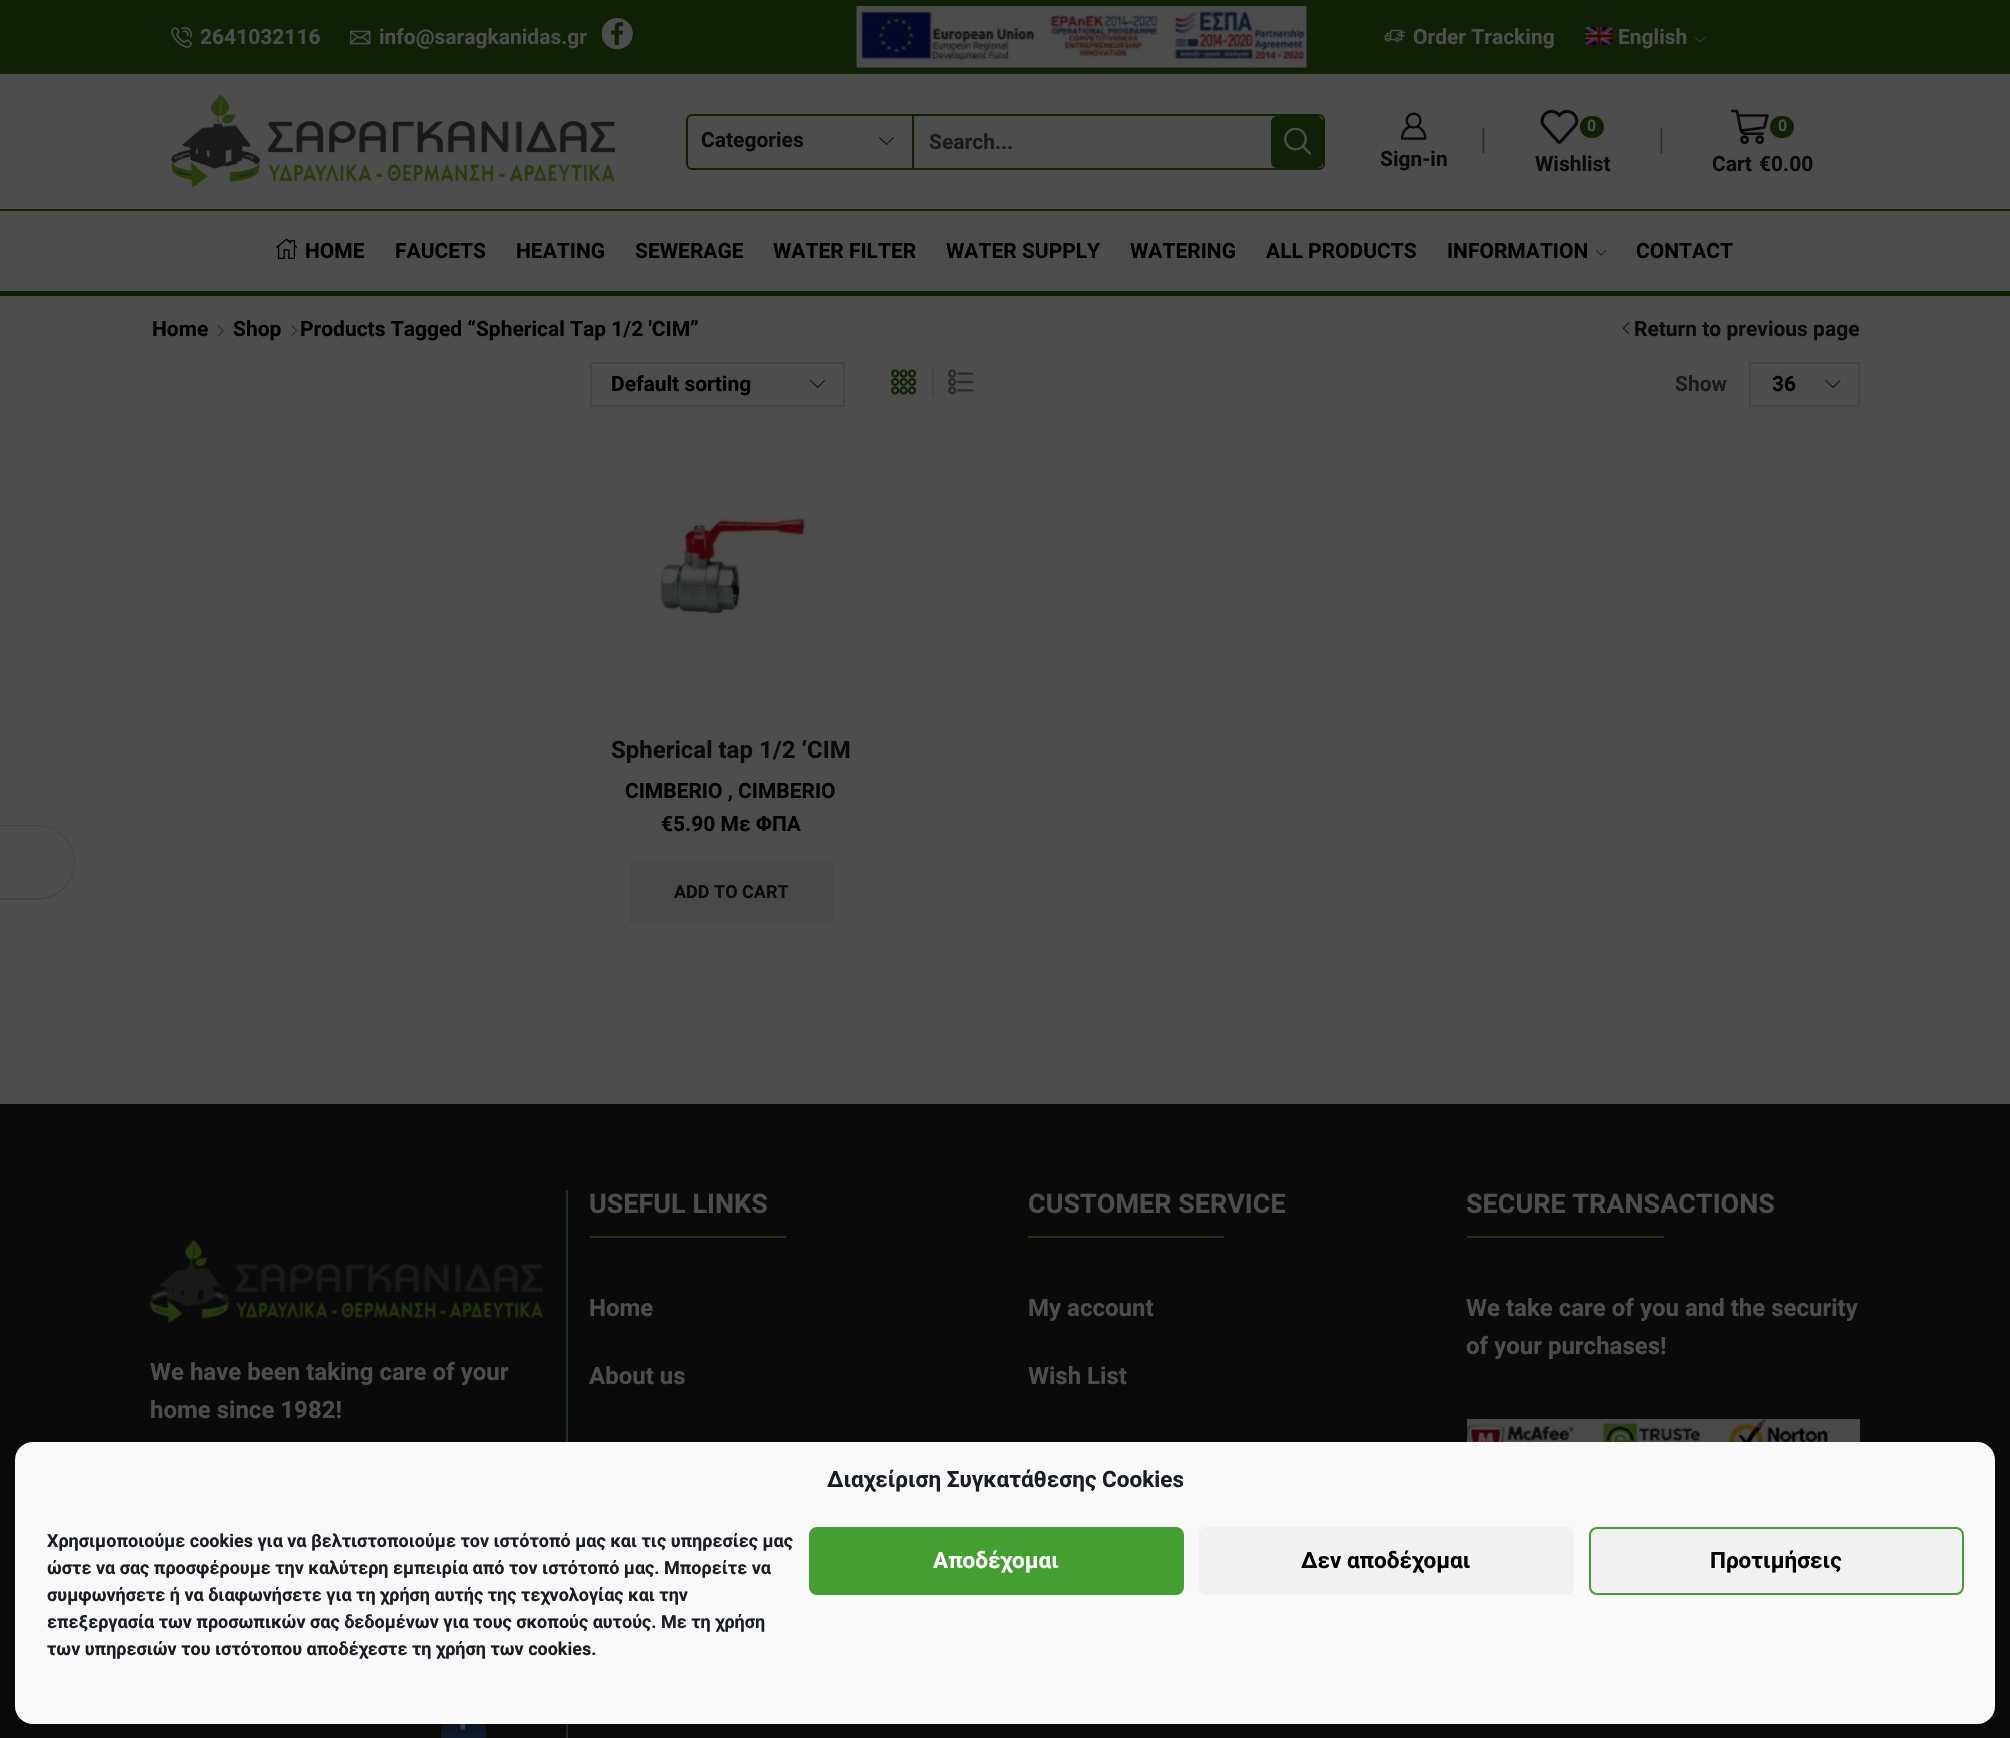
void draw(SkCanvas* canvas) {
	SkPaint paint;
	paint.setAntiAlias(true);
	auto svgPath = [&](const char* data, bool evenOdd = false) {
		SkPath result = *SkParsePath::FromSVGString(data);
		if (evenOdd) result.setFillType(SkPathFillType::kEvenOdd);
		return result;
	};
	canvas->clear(0xff4d4d4d);
	paint.setColor(0xff444444);
	canvas->drawPath(svgPath("M0 825H38C58 825 75 842 75 862C75 883 58 900 38 900H0ZM0 826H38C57 826 74 843 74 862C74 882 57 898 38 898H0Z", true), paint);
	paint.setColor(0xff102005);
	canvas->drawRect(SkRect::MakeXYWH(0, 0, 2010, 74), paint);
	canvas->drawImageRect(SkImages::DeferredFromEncodedData(SkData::MakeFromFileName("img1.png")), SkRect::MakeXYWH(171, 27, 21, 21), SkSamplingOptions());
	SkFont f1(fontMgr->matchFamilyStyle("Roboto", SkFontStyle::Bold()), 21);
	f1.setSubpixel(true);
	paint.setColor(0xff4d4d4d);
	canvas->drawString("2641032116", 200, 44, f1, paint);
	canvas->drawImageRect(SkImages::DeferredFromEncodedData(SkData::MakeFromFileName("img2.png")), SkRect::MakeXYWH(350, 30, 21, 15), SkSamplingOptions());
	canvas->drawString("info@saragkanidas.gr", 379, 44, f1, paint);
	canvas->drawImageRect(SkImages::DeferredFromEncodedData(SkData::MakeFromFileName("img3.png")), SkRect::MakeXYWH(602, 18, 31, 32), SkSamplingOptions());
	canvas->drawImageRect(SkImages::DeferredFromEncodedData(SkData::MakeFromFileName("img4.png")), SkRect::MakeXYWH(856, 6, 451, 62), SkSamplingOptions());
	canvas->drawImageRect(SkImages::DeferredFromEncodedData(SkData::MakeFromFileName("img5.png")), SkRect::MakeXYWH(1384, 29, 22, 13), SkSamplingOptions());
	canvas->drawString("Order Tracking", 1413, 44, f1, paint);
	canvas->drawImageRect(SkImages::DeferredFromEncodedData(SkData::MakeFromFileName("img6.png")), SkRect::MakeXYWH(1585, 27, 28, 18), SkSamplingOptions());
	canvas->drawString("English", 1618, 44, f1, paint);
	canvas->drawImageRect(SkImages::DeferredFromEncodedData(SkData::MakeFromFileName("img7.png")), SkRect::MakeXYWH(1695, 37, 11, 6), SkSamplingOptions());
	canvas->drawImageRect(SkImages::DeferredFromEncodedData(SkData::MakeFromFileName("img8.png")), SkRect::MakeXYWH(171, 94, 444, 94), SkSamplingOptions());
	paint.setStroke(true);
	paint.setStrokeWidth(2);
	paint.setColor(0xff102005);
	canvas->drawRoundRect(SkRect::MakeXYWH(687, 115, 637, 54), 5, 5, paint);
	canvas->drawImageRect(SkImages::DeferredFromEncodedData(SkData::MakeFromFileName("img9.png")), SkRect::MakeXYWH(879, 137, 15, 8), SkSamplingOptions());
	paint.setStroke(false);
	canvas->drawRect(SkRect::MakeXYWH(912, 116, 2, 52), paint);
	paint.setColor(0xff0a0a0a);
	canvas->drawString("Categories", 701, 147, f1, paint);
	paint.setColor(0xff1a1a1a);
	canvas->drawString("Search...", 929, 149, f1, paint);
	paint.setColor(0xff102005);
	canvas->drawRoundRect(SkRect::MakeXYWH(1271, 116, 52, 52), 6, 6, paint);
	canvas->drawImageRect(SkImages::DeferredFromEncodedData(SkData::MakeFromFileName("img10.png")), SkRect::MakeXYWH(1284, 128, 27, 27), SkSamplingOptions());
	SkFont f2(fontMgr->matchFamilyStyle("Liberation Serif", SkFontStyle::Normal()), 21);
	f2.setSubpixel(true);
	paint.setColor(0xff2c2c2c);
	canvas->drawString("│", 1476, 147, f2, paint);
	canvas->drawImageRect(SkImages::DeferredFromEncodedData(SkData::MakeFromFileName("img11.png")), SkRect::MakeXYWH(1540, 109, 39, 35), SkSamplingOptions());
	paint.setColor(0xff102005);
	canvas->drawRoundRect(SkRect::MakeXYWH(1580, 116, 24, 22), 11, 11, paint);
	SkFont f3(fontMgr->matchFamilyStyle("Roboto", SkFontStyle::Bold()), 16);
	f3.setSubpixel(true);
	paint.setColor(0xff4d4d4d);
	canvas->drawString("0", 1587, 131, f3, paint);
	paint.setColor(0xff0a0a0a);
	canvas->drawString("Wishlist", 1535, 171, f1, paint);
	paint.setColor(0xff2c2c2c);
	canvas->drawString("│", 1654, 147, f2, paint);
	canvas->drawImageRect(SkImages::DeferredFromEncodedData(SkData::MakeFromFileName("img12.png")), SkRect::MakeXYWH(1731, 109, 38, 36), SkSamplingOptions());
	paint.setColor(0xff102005);
	canvas->drawRoundRect(SkRect::MakeXYWH(1770, 116, 24, 22), 11, 11, paint);
	paint.setColor(0xff4d4d4d);
	canvas->drawString("0", 1778, 131, f3, paint);
	paint.setColor(0xff0a0a0a);
	canvas->drawString("Cart", 1712, 171, f1, paint);
	canvas->drawString("€0.00", 1759, 171, f1, paint);
	canvas->drawImageRect(SkImages::DeferredFromEncodedData(SkData::MakeFromFileName("img13.png")), SkRect::MakeXYWH(1400, 112, 27, 28), SkSamplingOptions());
	canvas->drawString("Sign-in", 1380, 166, f1, paint);
	paint.setColor(0xff102005);
	canvas->drawRect(SkRect::MakeXYWH(0, 209, 2010, 2), paint);
	canvas->drawRect(SkRect::MakeXYWH(0, 291, 2010, 5), paint);
	canvas->drawImageRect(SkImages::DeferredFromEncodedData(SkData::MakeFromFileName("img14.png")), SkRect::MakeXYWH(276, 238, 21, 22), SkSamplingOptions());
	paint.setColor(0xff000000);
	canvas->drawString("HOME", 305, 258, f1, paint);
	canvas->drawString("FAUCETS", 395, 258, f1, paint);
	canvas->drawString("HEATING", 516, 258, f1, paint);
	canvas->drawString("SEWERAGE", 635, 258, f1, paint);
	canvas->drawString("WATER FILTER", 773, 258, f1, paint);
	canvas->drawString("WATER SUPPLY", 946, 258, f1, paint);
	canvas->drawString("WATERING", 1130, 258, f1, paint);
	canvas->drawString("ALL PRODUCTS", 1266, 258, f1, paint);
	canvas->drawString("INFORMATION", 1447, 258, f1, paint);
	canvas->drawImageRect(SkImages::DeferredFromEncodedData(SkData::MakeFromFileName("img15.png")), SkRect::MakeXYWH(1596, 250, 11, 6), SkSamplingOptions());
	canvas->drawString("CONTACT", 1636, 258, f1, paint);
	canvas->drawString("Home", 152, 336, f1, paint);
	canvas->drawImageRect(SkImages::DeferredFromEncodedData(SkData::MakeFromFileName("img16.png")), SkRect::MakeXYWH(217, 324, 7, 13), SkSamplingOptions());
	canvas->drawString("Shop", 233, 336, f1, paint);
	canvas->drawImageRect(SkImages::DeferredFromEncodedData(SkData::MakeFromFileName("img17.png")), SkRect::MakeXYWH(290, 324, 8, 13), SkSamplingOptions());
	canvas->drawString("Products Tagged “Spherical Tap 1/2 'CIM”", 300, 336, f1, paint);
	canvas->drawImageRect(SkImages::DeferredFromEncodedData(SkData::MakeFromFileName("img18.png")), SkRect::MakeXYWH(1622, 322, 8, 13), SkSamplingOptions());
	paint.setColor(0xff0a0a0a);
	canvas->drawString("Return to previous page", 1634, 336, f1, paint);
	canvas->drawImageRect(SkImages::DeferredFromEncodedData(SkData::MakeFromFileName("img9.png")), SkRect::MakeXYWH(810, 380, 15, 8), SkSamplingOptions());
	paint.setStroke(true);
	paint.setColor(0xff444444);
	canvas->drawRect(SkRect::MakeXYWH(591, 363, 253, 43), paint);
	paint.setStroke(false);
	paint.setColor(0xff000000);
	canvas->drawString("Default sorting", 611, 391, f1, paint);
	canvas->drawImageRect(SkImages::DeferredFromEncodedData(SkData::MakeFromFileName("img19.png")), SkRect::MakeXYWH(891, 369, 26, 26), SkSamplingOptions());
	paint.setColor(0xff444444);
	canvas->drawRect(SkRect::MakeXYWH(932, 369, 2, 29), paint);
	canvas->drawImageRect(SkImages::DeferredFromEncodedData(SkData::MakeFromFileName("img20.png")), SkRect::MakeXYWH(948, 369, 26, 26), SkSamplingOptions());
	paint.setColor(0xff1a1a1a);
	canvas->drawString("Show", 1675, 391, f1, paint);
	canvas->drawImageRect(SkImages::DeferredFromEncodedData(SkData::MakeFromFileName("img21.png")), SkRect::MakeXYWH(1825, 380, 16, 8), SkSamplingOptions());
	paint.setStroke(true);
	paint.setColor(0xff444444);
	canvas->drawRect(SkRect::MakeXYWH(1750, 363, 109, 43), paint);
	paint.setStroke(false);
	paint.setColor(0xff000000);
	canvas->drawString("36", 1772, 391, f1, paint);
	canvas->drawImageRect(SkImages::DeferredFromEncodedData(SkData::MakeFromFileName("img22.png")), SkRect::MakeXYWH(659, 515, 158, 101), SkSamplingOptions());
	SkFont f4(fontMgr->matchFamilyStyle("Roboto", SkFontStyle::Bold()), 24);
	f4.setSubpixel(true);
	paint.setColor(0xff0a0a0a);
	canvas->drawString("Spherical tap 1/2 ‘CIM", 611, 758, f4, paint);
	paint.setColor(0xff000000);
	canvas->drawString("CIMBERIO , CIMBERIO", 625, 798, f1, paint);
	canvas->drawString("€5.90 Με ΦΠΑ", 661, 831, f1, paint);
	paint.setColor(0xff494949);
	canvas->drawRect(SkRect::MakeXYWH(629, 863, 205, 60), paint);
	SkFont f5(fontMgr->matchFamilyStyle("Roboto", SkFontStyle::Bold()), 18);
	f5.setSubpixel(true);
	paint.setColor(0xff0a0a0a);
	canvas->drawString("ADD TO CART", 674, 898, f5, paint);
	canvas->drawRect(SkRect::MakeXYWH(0, 1104, 2010, 634), paint);
	SkFont f6(fontMgr->matchFamilyStyle("Roboto", SkFontStyle::Bold()), 27);
	f6.setSubpixel(true);
	paint.setColor(0xff4d4d4d);
	canvas->drawString("USEFUL LINKS", 589, 1213, f6, paint);
	paint.setColor(0xff213312);
	canvas->drawRect(SkRect::MakeXYWH(590, 1236, 196, 2), paint);
	paint.setColor(0xff4d4d4d);
	canvas->drawString("Home", 589, 1316, f4, paint);
	canvas->drawString("About us", 589, 1384, f4, paint);
	canvas->drawString("CUSTOMER SERVICE", 1028, 1213, f6, paint);
	paint.setColor(0xff213312);
	canvas->drawRect(SkRect::MakeXYWH(1028, 1236, 196, 2), paint);
	paint.setColor(0xff4d4d4d);
	canvas->drawString("My account", 1028, 1316, f4, paint);
	canvas->drawString("Wish List", 1028, 1384, f4, paint);
	canvas->drawString("SECURE TRANSACTIONS", 1466, 1213, f6, paint);
	paint.setColor(0xff213312);
	canvas->drawRect(SkRect::MakeXYWH(1467, 1236, 197, 2), paint);
	paint.setColor(0xff4d4d4d);
	canvas->drawString("We take care of you and the security", 1466, 1316, f4, paint);
	canvas->drawString("of your purchases!", 1466, 1354, f4, paint);
	paint.setColor(0xff494949);
	canvas->drawRect(SkRect::MakeXYWH(1467, 1419, 393, 23), paint);
	canvas->drawImageRect(SkImages::DeferredFromEncodedData(SkData::MakeFromFileName("img23.png")), SkRect::MakeXYWH(1467, 1419, 363, 23), SkSamplingOptions());
	paint.setColor(0xff1e311f);
	canvas->drawRect(SkRect::MakeXYWH(566, 1190, 2, 548), paint);
	canvas->drawImageRect(SkImages::DeferredFromEncodedData(SkData::MakeFromFileName("img24.png")), SkRect::MakeXYWH(150, 1240, 393, 83), SkSamplingOptions());
	paint.setColor(0xff4d4d4d);
	canvas->drawString("We have been taking care of your", 150, 1380, f4, paint);
	canvas->drawString("home since 1982!", 150, 1418, f4, paint);
	paint.setColor(0xff111a2d);
	canvas->drawRect(SkRect::MakeXYWH(441, 1724, 45, 14), paint);
	canvas->drawImageRect(SkImages::DeferredFromEncodedData(SkData::MakeFromFileName("img25.png")), SkRect::MakeXYWH(460, 1724, 6, 6), SkSamplingOptions());
	paint.setColor(0x3b000000);
	paint.setMaskFilter(SkMaskFilter::MakeBlur(kNormal_SkBlurStyle, 4.5));
	canvas->drawRoundRect(SkRect::MakeXYWH(15, 1451, 1980, 282), 18, 18, paint);
	paint.setMaskFilter(nullptr);
	paint.setColor(0xfff9f9f9);
	canvas->drawRoundRect(SkRect::MakeXYWH(16, 1443, 1978, 280), 17, 17, paint);
	paint.setStroke(true);
	canvas->drawRoundRect(SkRect::MakeXYWH(16, 1443, 1978, 280), 17, 17, paint);
	SkFont f7(fontMgr->matchFamilyStyle("Roboto", SkFontStyle::Bold()), 22.5);
	f7.setSubpixel(true);
	paint.setStroke(false);
	paint.setColor(0xff191e23);
	canvas->drawString("Διαχείριση Συγκατάθεσης Cookies", 827, 1487, f7, paint);
	canvas->drawString("Χρησιμοποιούμε cookies για να βελτιστοποιούμε τον ιστότοπό μας και τις υπηρεσίες μας", 47, 1547, f5, paint);
	canvas->drawString("ώστε να σας προσφέρουμε την καλύτερη εμπειρία από τον ιστότοπό μας. Μπορείτε να", 47, 1574, f5, paint);
	canvas->drawString("συμφωνήσετε ή να διαφωνήσετε για τη χρήση αυτής της τεχνολογίας και την", 47, 1601, f5, paint);
	canvas->drawString("επεξεργασία των προσωπικών σας δεδομένων για τους σκοπούς αυτούς. Με τη χρήση", 47, 1628, f5, paint);
	canvas->drawString("των υπηρεσιών του ιστότοπου αποδέχεστε τη χρήση των cookies.", 47, 1655, f5, paint);
	paint.setColor(0xff459e31);
	canvas->drawRoundRect(SkRect::MakeXYWH(810, 1528, 373, 66), 7, 7, paint);
	paint.setStroke(true);
	canvas->drawRoundRect(SkRect::MakeXYWH(810, 1528, 373, 66), 7, 7, paint);
	paint.setStroke(false);
	paint.setColor(0xffffffff);
	canvas->drawString("Αποδέχομαι", 933, 1568, f7, paint);
	paint.setColor(0xfff1f1f1);
	canvas->drawRoundRect(SkRect::MakeXYWH(1199, 1527, 375, 68), 8, 8, paint);
	paint.setColor(0xff000000);
	canvas->drawString("Δεν αποδέχομαι", 1301, 1568, f7, paint);
	paint.setColor(0xfff1f1f1);
	canvas->drawRoundRect(SkRect::MakeXYWH(1590, 1528, 373, 66), 7, 7, paint);
	paint.setStroke(true);
	paint.setColor(0xff459e31);
	canvas->drawRoundRect(SkRect::MakeXYWH(1590, 1528, 373, 66), 7, 7, paint);
	paint.setStroke(false);
	paint.setColor(0xff000000);
	canvas->drawString("Προτιμήσεις", 1710, 1568, f7, paint);
}
